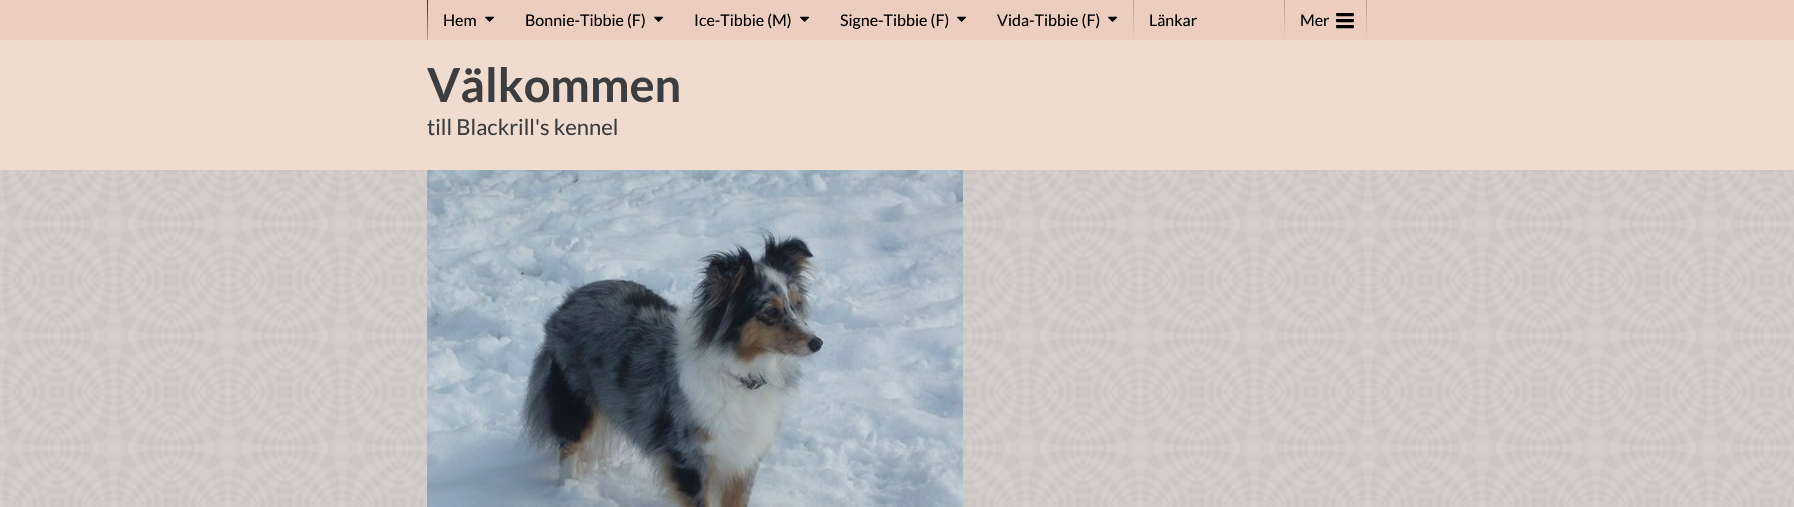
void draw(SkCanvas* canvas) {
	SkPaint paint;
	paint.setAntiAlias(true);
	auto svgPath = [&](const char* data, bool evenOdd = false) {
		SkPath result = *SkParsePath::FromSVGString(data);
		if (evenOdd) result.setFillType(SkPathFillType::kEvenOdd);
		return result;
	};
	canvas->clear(0xffeee6e4);
	canvas->drawImageRect(SkImages::DeferredFromEncodedData(SkData::MakeFromFileName("img1.png")), SkRect::MakeXYWH(0, 170, 1794, 337), SkSamplingOptions());
	paint.setColor(0xffefdcce);
	canvas->drawRect(SkRect::MakeXYWH(0, 40, 1794, 130), paint);
	paint.setColor(0xffebcec0);
	canvas->drawRect(SkRect::MakeXYWH(0, 0, 1794, 40), paint);
	{
		const SkColor colors[] = {0xffb39d92, 0xffebcec0};
		const float stops[] = {0, 1};
		const SkPoint ends[] = {{428, 0}, {428, 40}};
		paint.setShader(SkGradientShader::MakeLinear(ends, colors, stops, 2, SkTileMode::kClamp));
		paint.setAlpha(255);
	}
	canvas->drawRect(SkRect::MakeXYWH(427, 0, 1, 40), paint);
	SkFont f1(fontMgr->matchFamilyStyle("Lato", SkFontStyle::Normal()), 16);
	f1.setSubpixel(true);
	paint.setShader(nullptr);
	paint.setColor(0xff000000);
	canvas->drawString("Hem", 443, 26, f1, paint);
	canvas->drawImageRect(SkImages::DeferredFromEncodedData(SkData::MakeFromFileName("img2.png")), SkRect::MakeXYWH(485, 16, 10, 6), SkSamplingOptions());
	paint.setColor(0x3d5e524d);
	canvas->drawRect(SkRect::MakeXYWH(427, 0, 1, 40), paint);
	{
		const SkColor colors[] = {0x3d000000, 0x3debcec0};
		const float stops[] = {0, 1};
		const SkPoint ends[] = {{428, 0}, {428, 40}};
		paint.setShader(SkGradientShader::MakeLinear(ends, colors, stops, 2, SkTileMode::kClamp));
		paint.setAlpha(255);
	}
	canvas->drawRect(SkRect::MakeXYWH(427, 0, 1, 40), paint);
	paint.setShader(nullptr);
	paint.setColor(0xff000000);
	canvas->drawString("Bonnie-Tibbie (F)", 525, 26, f1, paint);
	canvas->drawImageRect(SkImages::DeferredFromEncodedData(SkData::MakeFromFileName("img2.png")), SkRect::MakeXYWH(654, 16, 10, 6), SkSamplingOptions());
	paint.setColor(0x3d5e524d);
	canvas->drawRect(SkRect::MakeXYWH(427, 0, 1, 40), paint);
	{
		const SkColor colors[] = {0x3d000000, 0x3debcec0};
		const float stops[] = {0, 1};
		const SkPoint ends[] = {{428, 0}, {428, 40}};
		paint.setShader(SkGradientShader::MakeLinear(ends, colors, stops, 2, SkTileMode::kClamp));
		paint.setAlpha(255);
	}
	canvas->drawRect(SkRect::MakeXYWH(427, 0, 1, 40), paint);
	paint.setShader(nullptr);
	paint.setColor(0xff000000);
	canvas->drawString("Ice-Tibbie (M)", 694, 26, f1, paint);
	canvas->drawImageRect(SkImages::DeferredFromEncodedData(SkData::MakeFromFileName("img2.png")), SkRect::MakeXYWH(800, 16, 10, 6), SkSamplingOptions());
	paint.setColor(0x3d5e524d);
	canvas->drawRect(SkRect::MakeXYWH(427, 0, 1, 40), paint);
	{
		const SkColor colors[] = {0x3d000000, 0x3debcec0};
		const float stops[] = {0, 1};
		const SkPoint ends[] = {{428, 0}, {428, 40}};
		paint.setShader(SkGradientShader::MakeLinear(ends, colors, stops, 2, SkTileMode::kClamp));
		paint.setAlpha(255);
	}
	canvas->drawRect(SkRect::MakeXYWH(427, 0, 1, 40), paint);
	paint.setShader(nullptr);
	paint.setColor(0xff000000);
	canvas->drawString("Signe-Tibbie (F)", 840, 26, f1, paint);
	canvas->drawImageRect(SkImages::DeferredFromEncodedData(SkData::MakeFromFileName("img2.png")), SkRect::MakeXYWH(957, 16, 10, 6), SkSamplingOptions());
	paint.setColor(0x3d5e524d);
	canvas->drawRect(SkRect::MakeXYWH(427, 0, 1, 40), paint);
	{
		const SkColor colors[] = {0x3d000000, 0x3debcec0};
		const float stops[] = {0, 1};
		const SkPoint ends[] = {{428, 0}, {428, 40}};
		paint.setShader(SkGradientShader::MakeLinear(ends, colors, stops, 2, SkTileMode::kClamp));
		paint.setAlpha(255);
	}
	canvas->drawRect(SkRect::MakeXYWH(427, 0, 1, 40), paint);
	paint.setShader(nullptr);
	paint.setColor(0xff000000);
	canvas->drawString("Vida-Tibbie (F)", 997, 26, f1, paint);
	canvas->drawImageRect(SkImages::DeferredFromEncodedData(SkData::MakeFromFileName("img2.png")), SkRect::MakeXYWH(1108, 16, 10, 6), SkSamplingOptions());
	{
		const SkColor colors[] = {0xffb39d92, 0xffebcec0};
		const float stops[] = {0, 1};
		const SkPoint ends[] = {{1134, 0}, {1134, 40}};
		paint.setShader(SkGradientShader::MakeLinear(ends, colors, stops, 2, SkTileMode::kClamp));
		paint.setAlpha(255);
	}
	canvas->drawRect(SkRect::MakeXYWH(1133, 0, 1, 40), paint);
	paint.setShader(nullptr);
	paint.setColor(0xff000000);
	canvas->drawString("Länkar", 1149, 26, f1, paint);
	{
		const SkColor colors[] = {0xffb39d92, 0xffebcec0};
		const float stops[] = {0, 1};
		const SkPoint ends[] = {{1285, 0}, {1285, 40}};
		paint.setShader(SkGradientShader::MakeLinear(ends, colors, stops, 2, SkTileMode::kClamp));
		paint.setAlpha(255);
	}
	canvas->drawRect(SkRect::MakeXYWH(1284, 0, 1, 40), paint);
	paint.setShader(nullptr);
	paint.setColor(0xff000000);
	canvas->drawString("Mer", 1300, 26, f1, paint);
	paint.setColor(0xffb09b90);
	canvas->drawPath(svgPath("M1336 15C1336 17.5 1337 17 1339.5 17H1350.5C1353 17 1354 17.5 1354 15C1354 15.5 1353.5 16 1353 16H1337C1336.5 16 1336 15.5 1336 15Z"), paint);
	paint.setColor(0xff000000);
	canvas->drawRoundRect(SkRect::MakeXYWH(1336, 13, 18, 3), 1, 1, paint);
	paint.setColor(0xffb09b90);
	canvas->drawPath(svgPath("M1336 21C1336 23.5 1337 23 1339.5 23H1350.5C1353 23 1354 23.5 1354 21C1354 21.5 1353.5 22 1353 22H1337C1336.5 22 1336 21.5 1336 21Z"), paint);
	paint.setColor(0xff000000);
	canvas->drawRoundRect(SkRect::MakeXYWH(1336, 19, 18, 3), 1, 1, paint);
	paint.setColor(0xffb09b90);
	canvas->drawPath(svgPath("M1336 27C1336 29.5 1337 29 1339.5 29H1350.5C1353 29 1354 29.5 1354 27C1354 27.5 1353.5 28 1353 28H1337C1336.5 28 1336 27.5 1336 27Z"), paint);
	paint.setColor(0xff000000);
	canvas->drawRoundRect(SkRect::MakeXYWH(1336, 25, 18, 3), 1, 1, paint);
	{
		const SkColor colors[] = {0xffb39d92, 0xffebcec0};
		const float stops[] = {0, 1};
		const SkPoint ends[] = {{1367, 0}, {1367, 40}};
		paint.setShader(SkGradientShader::MakeLinear(ends, colors, stops, 2, SkTileMode::kClamp));
		paint.setAlpha(255);
	}
	canvas->drawRect(SkRect::MakeXYWH(1366, 0, 1, 40), paint);
	SkFont f2(fontMgr->matchFamilyStyle("Lato", SkFontStyle::Bold()), 47);
	f2.setSubpixel(true);
	paint.setShader(nullptr);
	paint.setColor(0xff3d3d3f);
	canvas->drawString("Välkommen", 427, 102, f2, paint);
	SkFont f3(fontMgr->matchFamilyStyle("Lato", SkFontStyle::Normal()), 22);
	f3.setSubpixel(true);
	canvas->drawString("till Blackrill's kennel", 427, 135, f3, paint);
	canvas->drawImageRect(SkImages::DeferredFromEncodedData(SkData::MakeFromFileName("img3.png")), SkRect::MakeXYWH(427, 170, 536, 337), SkSamplingOptions());
}
